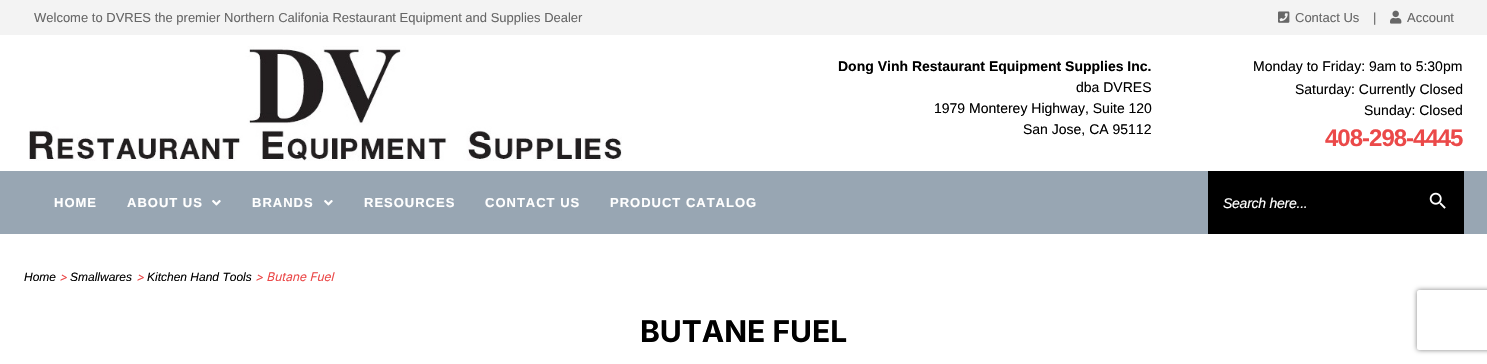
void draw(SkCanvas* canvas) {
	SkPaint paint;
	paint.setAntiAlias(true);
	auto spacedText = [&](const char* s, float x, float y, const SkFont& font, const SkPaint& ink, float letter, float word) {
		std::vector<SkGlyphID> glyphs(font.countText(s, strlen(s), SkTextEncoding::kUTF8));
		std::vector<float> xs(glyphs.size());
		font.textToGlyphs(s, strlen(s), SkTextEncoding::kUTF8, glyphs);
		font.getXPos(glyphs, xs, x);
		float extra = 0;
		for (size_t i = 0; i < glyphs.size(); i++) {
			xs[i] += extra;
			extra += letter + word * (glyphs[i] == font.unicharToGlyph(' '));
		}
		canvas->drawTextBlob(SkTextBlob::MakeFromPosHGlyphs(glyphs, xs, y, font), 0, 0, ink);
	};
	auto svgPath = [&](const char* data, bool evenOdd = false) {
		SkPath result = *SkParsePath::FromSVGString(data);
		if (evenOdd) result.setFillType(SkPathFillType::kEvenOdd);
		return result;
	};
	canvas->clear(0xffffffff);
	paint.setColor(0xfff3f3f3);
	canvas->drawRect(SkRect::MakeXYWH(0, 0, 1487, 35), paint);
	SkFont f1(fontMgr->matchFamilyStyle("Liberation Sans", SkFontStyle::Normal()), 13);
	f1.setSubpixel(true);
	paint.setColor(0xff676767);
	canvas->drawString("Welcome to DVRES the premier Northern Califonia Restaurant Equipment and Supplies Dealer", 34, 22, f1, paint);
	canvas->drawImageRect(SkImages::DeferredFromEncodedData(SkData::MakeFromFileName("img1.png")), SkRect::MakeXYWH(1278, 11, 12, 12), SkSamplingOptions());
	canvas->drawString("Contact Us", 1295, 22, f1, paint);
	canvas->drawString("|", 1373, 22, f1, paint);
	canvas->drawImageRect(SkImages::DeferredFromEncodedData(SkData::MakeFromFileName("img2.png")), SkRect::MakeXYWH(1390, 10, 12, 14), SkSamplingOptions());
	canvas->drawString("Account", 1407, 22, f1, paint);
	canvas->drawImageRect(SkImages::DeferredFromEncodedData(SkData::MakeFromFileName("img3.png")), SkRect::MakeXYWH(29, 46, 593, 115), SkSamplingOptions());
	SkFont f2(fontMgr->matchFamilyStyle("Liberation Sans", SkFontStyle::Bold()), 14);
	f2.setSubpixel(true);
	paint.setColor(0xff000000);
	canvas->drawString("Dong Vinh Restaurant Equipment Supplies Inc.", 838, 71, f2, paint);
	SkFont f3(fontMgr->matchFamilyStyle("Liberation Sans", SkFontStyle::Normal()), 14);
	f3.setSubpixel(true);
	canvas->drawString("dba DVRES", 1076, 92, f3, paint);
	canvas->drawString("1979 Monterey Highway, Suite 120", 934, 113, f3, paint);
	canvas->drawString("San Jose, CA 95112", 1023, 134, f3, paint);
	canvas->drawString("Monday to Friday: 9am to 5:30pm", 1253, 71, f3, paint);
	canvas->drawString("Saturday: Currently Closed", 1295, 94, f3, paint);
	canvas->drawString("Sunday: Closed", 1364, 115, f3, paint);
	SkFont f4(fontMgr->matchFamilyStyle("Liberation Sans", SkFontStyle::Bold()), 24);
	f4.setSubpixel(true);
	paint.setColor(0xffeb4949);
	spacedText("408-298-4445", 1325, 146, f4, paint, -1, 0);
	paint.setColor(0xff98a6b3);
	canvas->drawRect(SkRect::MakeXYWH(0, 171, 1487, 63), paint);
	SkFont f5(fontMgr->matchFamilyStyle("Liberation Sans", SkFontStyle::Bold()), 13);
	f5.setSubpixel(true);
	paint.setColor(0xffffffff);
	spacedText("HOME", 54, 207, f5, paint, 1, 0);
	spacedText("ABOUT US", 127, 207, f5, paint, 1, 0);
	canvas->drawImageRect(SkImages::DeferredFromEncodedData(SkData::MakeFromFileName("img4.png")), SkRect::MakeXYWH(212, 200, 9, 6), SkSamplingOptions());
	spacedText("BRANDS", 252, 207, f5, paint, 1, 0);
	canvas->drawImageRect(SkImages::DeferredFromEncodedData(SkData::MakeFromFileName("img4.png")), SkRect::MakeXYWH(324, 200, 9, 6), SkSamplingOptions());
	spacedText("RESOURCES", 364, 207, f5, paint, 1, 0);
	spacedText("CONTACT US", 485, 207, f5, paint, 1, 0);
	spacedText("PRODUCT CATALOG", 610, 207, f5, paint, 1, 0);
	paint.setColor(0xff000000);
	canvas->drawRect(SkRect::MakeXYWH(1208, 171, 256, 63), paint);
	SkFont f6(fontMgr->matchFamilyStyle("Liberation Sans", SkFontStyle::Italic()), 14);
	f6.setSubpixel(true);
	paint.setColor(0xffffffff);
	spacedText("Search here...", 1223, 208, f6, paint, -0.25, 0);
	canvas->drawImageRect(SkImages::DeferredFromEncodedData(SkData::MakeFromFileName("img5.png")), SkRect::MakeXYWH(1429, 192, 17, 17), SkSamplingOptions());
	SkFont f7(fontMgr->matchFamilyStyle("Liberation Sans", SkFontStyle::Italic()), 12);
	f7.setSubpixel(true);
	paint.setColor(0xff000000);
	canvas->drawString("Home", 24, 281, f7, paint);
	SkFont f8(fontMgr->matchFamilyStyle("Inter", SkFontStyle::Italic()), 12);
	f8.setSubpixel(true);
	paint.setColor(0xffeb4949);
	canvas->drawString(">", 59, 281, f8, paint);
	paint.setColor(0xff000000);
	canvas->drawString("Smallwares", 70, 281, f7, paint);
	paint.setColor(0xffeb4949);
	canvas->drawString(">", 136, 281, f8, paint);
	paint.setColor(0xff000000);
	canvas->drawString("Kitchen Hand Tools", 147, 281, f7, paint);
	paint.setColor(0xffeb4949);
	canvas->drawString("> Butane Fuel", 255, 281, f8, paint);
	SkFont f9(fontMgr->matchFamilyStyle("Inter", SkFontStyle::Bold()), 30);
	f9.setSubpixel(true);
	paint.setColor(0xff000000);
	canvas->drawString("BUTANE FUEL", 640, 342, f9, paint);
	canvas->save();
	canvas->clipPath(svgPath("M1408 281H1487V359H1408ZM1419 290H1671C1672 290 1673 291 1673 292V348C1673 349 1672 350 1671 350H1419C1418 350 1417 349 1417 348V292C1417 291 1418 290 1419 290Z", true), true);
	paint.setColor(0xff808080);
	paint.setMaskFilter(SkMaskFilter::MakeBlur(kNormal_SkBlurStyle, 2.5));
	canvas->drawRoundRect(SkRect::MakeXYWH(1417, 290, 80, 60), 2, 2, paint);
	paint.setMaskFilter(nullptr);
	canvas->restore();
}
